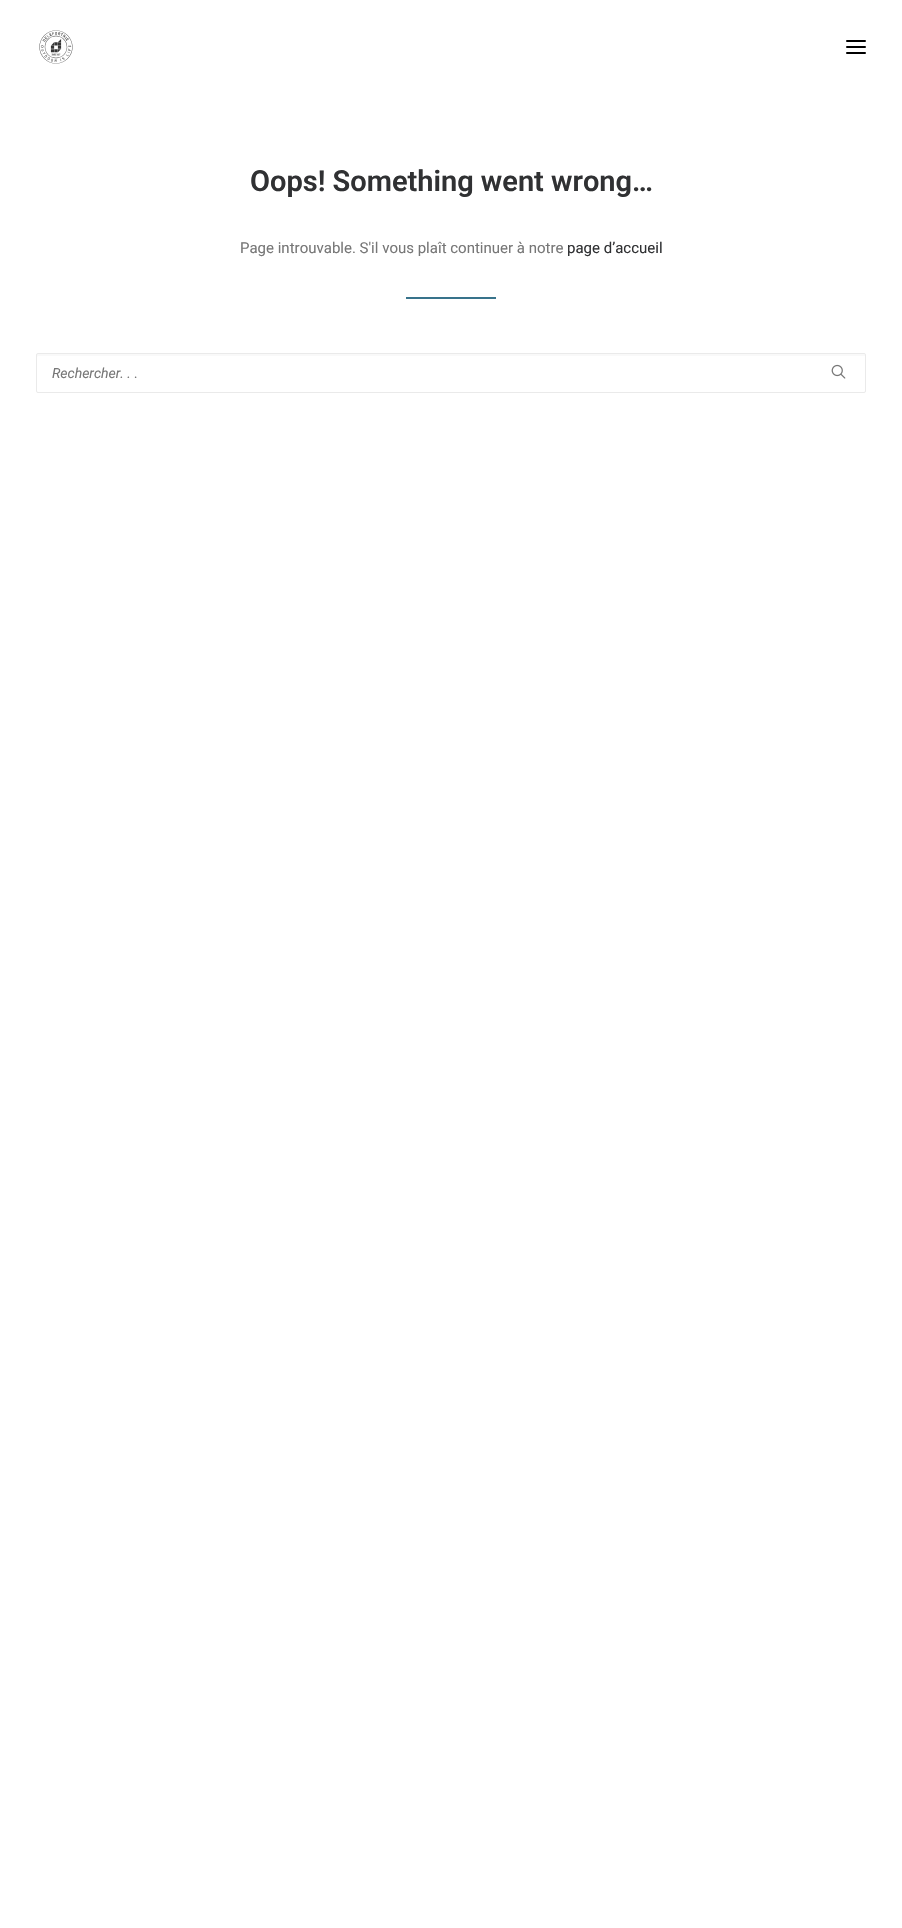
void draw(SkCanvas* canvas) {
	SkPaint paint;
	paint.setAntiAlias(true);
	auto svgPath = [&](const char* data, bool evenOdd = false) {
		SkPath result = *SkParsePath::FromSVGString(data);
		if (evenOdd) result.setFillType(SkPathFillType::kEvenOdd);
		return result;
	};
	canvas->clear(0xffffffff);
	canvas->drawImageRect(SkImages::DeferredFromEncodedData(SkData::MakeFromFileName("img1.png")), SkRect::MakeXYWH(39, 30, 34, 34), SkSamplingOptions());
	paint.setColor(0xff000000);
	canvas->drawRoundRect(SkRect::MakeXYWH(846, 46, 20, 2), 1, 1, paint);
	canvas->drawRoundRect(SkRect::MakeXYWH(846, 40, 20, 2), 1, 1, paint);
	canvas->drawRoundRect(SkRect::MakeXYWH(846, 52, 20, 2), 1, 1, paint);
	SkFont f1(fontMgr->matchFamilyStyle("Roboto", SkFontStyle(600, SkFontStyle::kNormal_Width, SkFontStyle::kUpright_Slant)), 29);
	f1.setSubpixel(true);
	paint.setColor(0xff303133);
	canvas->drawString("Oops! Something went wrong…", 250, 191, f1, paint);
	SkFont f2(fontMgr->matchFamilyStyle("Roboto", SkFontStyle::Normal()), 15);
	f2.setSubpixel(true);
	paint.setColor(0xff777777);
	canvas->drawString("Page introuvable. S'il vous plaît continuer à notre", 240, 253, f2, paint);
	paint.setColor(0xff303133);
	canvas->drawString("page d’accueil", 567, 253, f2, paint);
	paint.setColor(0xff38738b);
	canvas->drawRect(SkRect::MakeXYWH(406, 297, 90, 2), paint);
	paint.setColor(0xfff9f9f9);
	canvas->drawPath(svgPath("M38 356H865V355L864 354H38H37V357Z"), paint);
	paint.setStroke(true);
	paint.setStrokeWidth(1);
	paint.setColor(0xffeaeaea);
	canvas->drawRoundRect(SkRect::MakeXYWH(36.5, 353.5, 829, 39), 1.5, 1.5, paint);
	SkFont f3(fontMgr->matchFamilyStyle("Roboto", SkFontStyle::Italic()), 14);
	f3.setSubpixel(true);
	paint.setStroke(false);
	paint.setColor(0xff777777);
	canvas->drawString("Rechercher. . .", 52, 378, f3, paint);
	canvas->drawImageRect(SkImages::DeferredFromEncodedData(SkData::MakeFromFileName("img2.png")), SkRect::MakeXYWH(831, 364, 15, 15), SkSamplingOptions());
}
